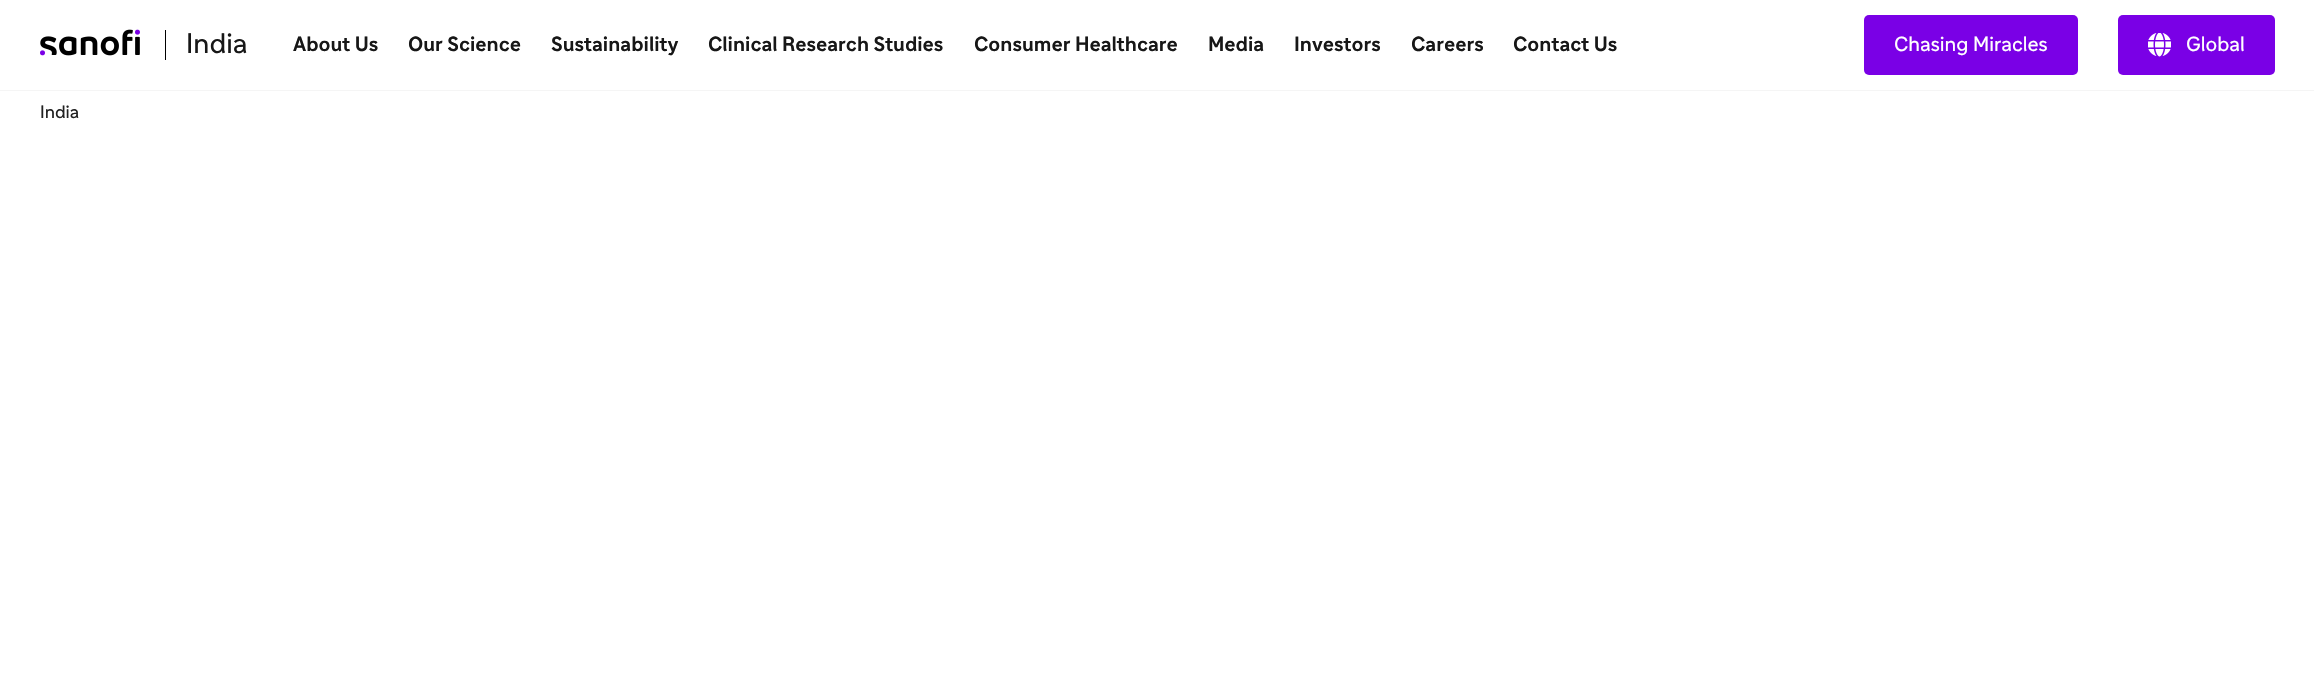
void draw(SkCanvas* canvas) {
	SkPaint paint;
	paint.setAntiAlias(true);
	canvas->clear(0xffffffff);
	paint.setColor(0xfff5f5f5);
	canvas->drawRect(SkRect::MakeXYWH(0, 90, 2314, 1), paint);
	canvas->drawImageRect(SkImages::DeferredFromEncodedData(SkData::MakeFromFileName("img1.png")), SkRect::MakeXYWH(40, 29, 100, 27), SkSamplingOptions());
	paint.setColor(0xff000000);
	canvas->drawRect(SkRect::MakeXYWH(165, 30, 1, 30), paint);
	SkFont f1(fontMgr->matchFamilyStyle("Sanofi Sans", SkFontStyle::Normal()), 27.5);
	f1.setSubpixel(true);
	paint.setColor(0xff171717);
	canvas->drawString("India", 186, 53, f1, paint);
	paint.setColor(0xff7a00e6);
	canvas->drawRoundRect(SkRect::MakeXYWH(2118, 15, 157, 60), 5, 5, paint);
	canvas->drawImageRect(SkImages::DeferredFromEncodedData(SkData::MakeFromFileName("img2.png")), SkRect::MakeXYWH(2148, 33, 23, 24), SkSamplingOptions());
	SkFont f2(fontMgr->matchFamilyStyle("Sanofi Sans", SkFontStyle::Normal()), 20);
	f2.setSubpixel(true);
	paint.setColor(0xffffffff);
	canvas->drawString("Global", 2186, 51, f2, paint);
	SkFont f3(fontMgr->matchFamilyStyle("Sanofi Sans", SkFontStyle::Bold()), 20);
	f3.setSubpixel(true);
	paint.setColor(0xff171717);
	canvas->drawString("About Us", 293, 51, f3, paint);
	canvas->drawString("Our Science", 408, 51, f3, paint);
	canvas->drawString("Sustainability", 551, 51, f3, paint);
	canvas->drawString("Clinical Research Studies", 708, 51, f3, paint);
	canvas->drawString("Consumer Healthcare", 974, 51, f3, paint);
	canvas->drawString("Media", 1208, 51, f3, paint);
	canvas->drawString("Investors", 1294, 51, f3, paint);
	canvas->drawString("Careers", 1411, 51, f3, paint);
	canvas->drawString("Contact Us", 1513, 51, f3, paint);
	paint.setColor(0xff7a00e6);
	canvas->drawRoundRect(SkRect::MakeXYWH(1864, 15, 214, 60), 5, 5, paint);
	paint.setColor(0xffffffff);
	canvas->drawString("Chasing Miracles", 1894, 51, f2, paint);
	SkFont f4(fontMgr->matchFamilyStyle("Sanofi Sans", SkFontStyle::Normal()), 17.5);
	f4.setSubpixel(true);
	paint.setColor(0xff212121);
	canvas->drawString("India", 40, 118, f4, paint);
}
